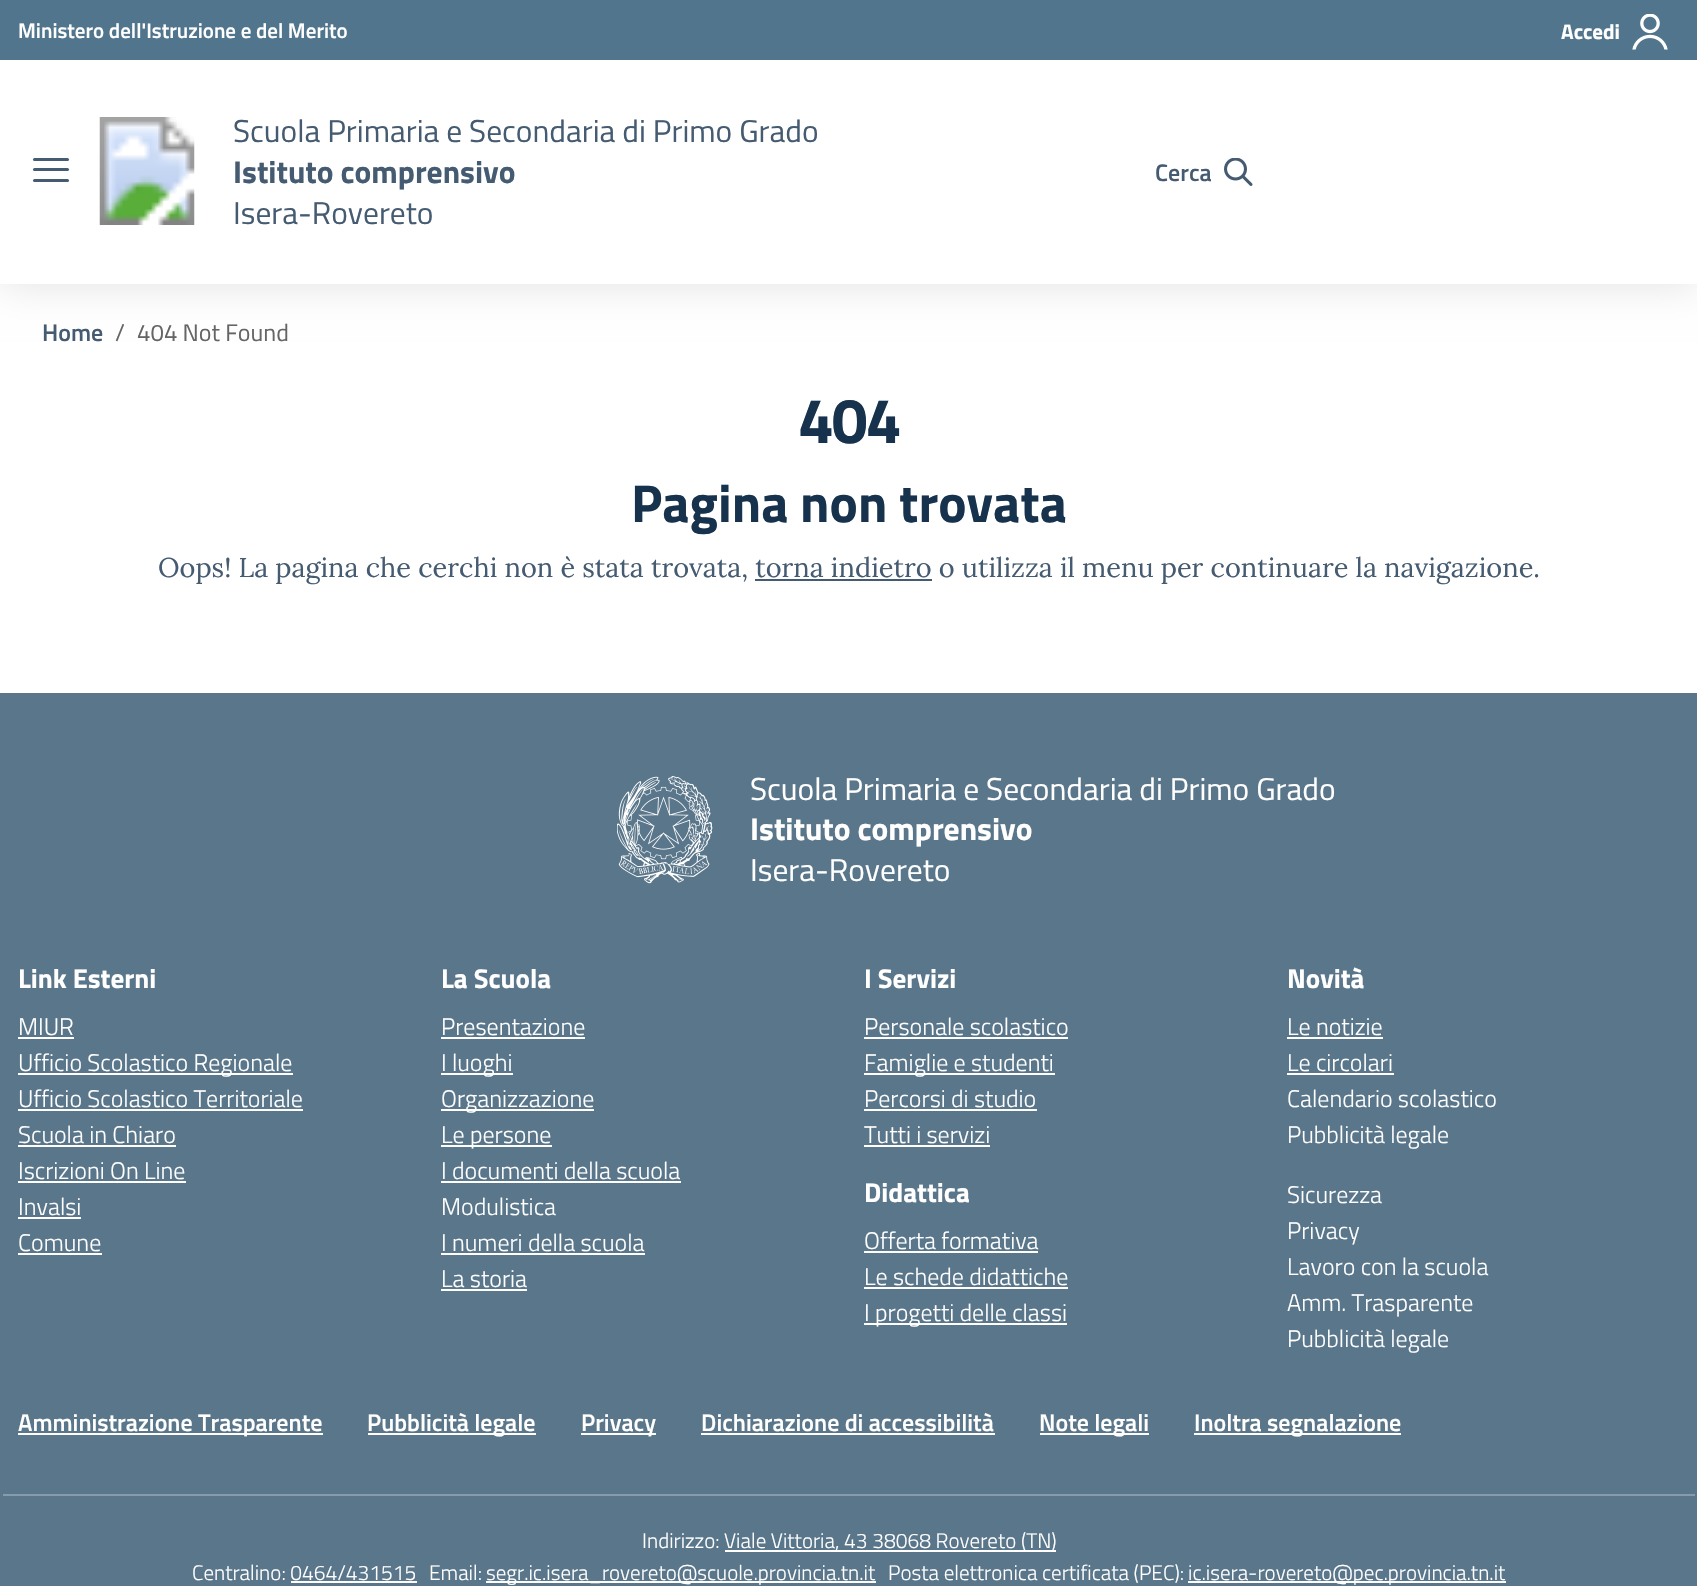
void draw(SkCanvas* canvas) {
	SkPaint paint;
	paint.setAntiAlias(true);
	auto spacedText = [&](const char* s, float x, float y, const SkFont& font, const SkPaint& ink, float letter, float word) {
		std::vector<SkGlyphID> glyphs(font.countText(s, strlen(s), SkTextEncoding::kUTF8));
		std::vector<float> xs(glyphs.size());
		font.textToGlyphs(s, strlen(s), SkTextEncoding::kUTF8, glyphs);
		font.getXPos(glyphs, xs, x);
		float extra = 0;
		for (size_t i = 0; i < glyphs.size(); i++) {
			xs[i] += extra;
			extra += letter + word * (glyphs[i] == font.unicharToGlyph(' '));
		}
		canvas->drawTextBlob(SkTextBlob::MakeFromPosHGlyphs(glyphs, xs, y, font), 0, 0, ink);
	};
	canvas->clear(0xffffffff);
	paint.setColor(0x1a000000);
	paint.setMaskFilter(SkMaskFilter::MakeBlur(kNormal_SkBlurStyle, 18.5));
	canvas->drawRect(SkRect::MakeXYWH(0, 3, 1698, 284), paint);
	paint.setMaskFilter(nullptr);
	paint.setColor(0xffffffff);
	canvas->drawRect(SkRect::MakeXYWH(0, 60, 1697, 224), paint);
	paint.setColor(0xff51758d);
	canvas->drawRect(SkRect::MakeXYWH(0, 0, 1697, 60), paint);
	SkFont f1(fontMgr->matchFamilyStyle("Titillium Web", SkFontStyle(600, SkFontStyle::kNormal_Width, SkFontStyle::kUpright_Slant)), 21);
	f1.setSubpixel(true);
	paint.setColor(0xffffffff);
	canvas->drawString("Ministero dell'Istruzione e del Merito", 18, 38, f1, paint);
	SkFont f2(fontMgr->matchFamilyStyle("Titillium Web", SkFontStyle::Bold()), 21);
	f2.setSubpixel(true);
	canvas->drawString("Accedi", 1561, 39, f2, paint);
	canvas->drawImageRect(SkImages::DeferredFromEncodedData(SkData::MakeFromFileName("img1.png")), SkRect::MakeXYWH(1632, 14, 36, 36), SkSamplingOptions());
	paint.setColor(0xff455b71);
	canvas->drawRoundRect(SkRect::MakeXYWH(33, 168, 36, 3), 1.5, 1.5, paint);
	canvas->drawRoundRect(SkRect::MakeXYWH(33, 158, 36, 3), 1.5, 1.5, paint);
	canvas->drawRoundRect(SkRect::MakeXYWH(33, 179, 36, 3), 1.5, 1.5, paint);
	canvas->drawImageRect(SkImages::DeferredFromEncodedData(SkData::MakeFromFileName("img2.png")), SkRect::MakeXYWH(99, 117, 96, 108), SkSamplingOptions());
	SkFont f3(fontMgr->matchFamilyStyle("Titillium Web", SkFontStyle::Normal()), 31.5);
	f3.setSubpixel(true);
	canvas->drawString("Scuola Primaria e Secondaria di Primo Grado", 233, 142, f3, paint);
	SkFont f4(fontMgr->matchFamilyStyle("Titillium Web", SkFontStyle::Bold()), 31.5);
	f4.setSubpixel(true);
	canvas->drawString("Istituto comprensivo", 233, 183, f4, paint);
	canvas->drawString("Isera-Rovereto", 233, 224, f3, paint);
	SkFont f5(fontMgr->matchFamilyStyle("Titillium Web", SkFontStyle(600, SkFontStyle::kNormal_Width, SkFontStyle::kUpright_Slant)), 24);
	f5.setSubpixel(true);
	canvas->drawString("Cerca", 1155, 181, f5, paint);
	canvas->drawImageRect(SkImages::DeferredFromEncodedData(SkData::MakeFromFileName("img3.png")), SkRect::MakeXYWH(1224, 158, 29, 28), SkSamplingOptions());
	canvas->drawString("Home", 42, 341, f5, paint);
	SkFont f6(fontMgr->matchFamilyStyle("Titillium Web", SkFontStyle::Normal()), 24);
	f6.setSubpixel(true);
	paint.setColor(0xff656566);
	canvas->drawString("/", 115, 341, f6, paint);
	canvas->drawString("404 Not Found", 137, 341, f6, paint);
	SkFont f7(fontMgr->matchFamilyStyle("Titillium Web", SkFontStyle::Bold()), 64);
	f7.setSubpixel(true);
	paint.setColor(0xff17324d);
	spacedText("404", 798, 443, f7, paint, -2, 0);
	SkFont f8(fontMgr->matchFamilyStyle("Titillium Web", SkFontStyle::Bold()), 53.25);
	f8.setSubpixel(true);
	canvas->drawString("Pagina non trovata", 631, 522, f8, paint);
	SkFont f9(fontMgr->matchFamilyStyle("Lora", SkFontStyle::Normal()), 27.12);
	f9.setSubpixel(true);
	paint.setColor(0xff455b71);
	canvas->drawString("Oops! La pagina che cerchi non è stata trovata, torna indietro o utilizza il menu per continuare la navigazione.", 158, 577, f9, paint);
	canvas->drawRect(SkRect::MakeXYWH(755, 579, 177, 2), paint);
	paint.setColor(0xff5a768a);
	canvas->drawRect(SkRect::MakeXYWH(0, 693, 1697, 893), paint);
	canvas->drawImageRect(SkImages::DeferredFromEncodedData(SkData::MakeFromFileName("img4.png")), SkRect::MakeXYWH(617, 776, 96, 108), SkSamplingOptions());
	paint.setColor(0xffffffff);
	canvas->drawString("Scuola Primaria e Secondaria di Primo Grado", 750, 800, f3, paint);
	canvas->drawString("Istituto comprensivo", 750, 840, f4, paint);
	canvas->drawString("Isera-Rovereto", 750, 881, f3, paint);
	SkFont f10(fontMgr->matchFamilyStyle("Titillium Web", SkFontStyle::Bold()), 27.12);
	f10.setSubpixel(true);
	canvas->drawString("Link Esterni", 18, 988, f10, paint);
	SkFont f11(fontMgr->matchFamilyStyle("Titillium Web", SkFontStyle(300, SkFontStyle::kNormal_Width, SkFontStyle::kUpright_Slant)), 24);
	f11.setSubpixel(true);
	canvas->drawString("MIUR", 18, 1035, f11, paint);
	canvas->drawRect(SkRect::MakeXYWH(18, 1037, 56, 2), paint);
	canvas->drawRect(SkRect::MakeXYWH(18, 1073, 275, 2), paint);
	canvas->drawString("Ufficio Scolastico Regionale", 18, 1071, f11, paint);
	canvas->drawString("Ufficio Scolastico Territoriale", 18, 1107, f11, paint);
	canvas->drawRect(SkRect::MakeXYWH(18, 1109, 285, 2), paint);
	canvas->drawString("Scuola in Chiaro", 18, 1143, f11, paint);
	canvas->drawRect(SkRect::MakeXYWH(18, 1145, 158, 2), paint);
	canvas->drawString("Iscrizioni On Line", 18, 1179, f11, paint);
	canvas->drawRect(SkRect::MakeXYWH(18, 1181, 168, 2), paint);
	canvas->drawString("Invalsi", 18, 1215, f11, paint);
	canvas->drawRect(SkRect::MakeXYWH(18, 1217, 63, 2), paint);
	canvas->drawString("Comune", 18, 1251, f11, paint);
	canvas->drawRect(SkRect::MakeXYWH(18, 1253, 84, 2), paint);
	canvas->drawString("La Scuola", 441, 988, f10, paint);
	canvas->drawString("Presentazione", 441, 1035, f11, paint);
	canvas->drawRect(SkRect::MakeXYWH(441, 1037, 144, 2), paint);
	canvas->drawRect(SkRect::MakeXYWH(441, 1073, 72, 2), paint);
	canvas->drawString("I luoghi", 441, 1071, f11, paint);
	canvas->drawRect(SkRect::MakeXYWH(441, 1109, 153, 2), paint);
	canvas->drawString("Organizzazione", 441, 1107, f11, paint);
	canvas->drawRect(SkRect::MakeXYWH(441, 1145, 111, 2), paint);
	canvas->drawString("Le persone", 441, 1143, f11, paint);
	canvas->drawString("I documenti della scuola", 441, 1179, f11, paint);
	canvas->drawRect(SkRect::MakeXYWH(441, 1181, 240, 2), paint);
	canvas->drawString("Modulistica", 441, 1215, f11, paint);
	canvas->drawString("I numeri della scuola", 441, 1251, f11, paint);
	canvas->drawRect(SkRect::MakeXYWH(441, 1253, 204, 2), paint);
	canvas->drawString("La storia", 441, 1287, f11, paint);
	canvas->drawRect(SkRect::MakeXYWH(441, 1289, 86, 2), paint);
	canvas->drawString("I Servizi", 864, 988, f10, paint);
	canvas->drawString("Personale scolastico", 864, 1035, f11, paint);
	canvas->drawRect(SkRect::MakeXYWH(864, 1037, 204, 2), paint);
	canvas->drawRect(SkRect::MakeXYWH(864, 1073, 191, 2), paint);
	canvas->drawString("Famiglie e studenti", 864, 1071, f11, paint);
	canvas->drawString("Percorsi di studio", 864, 1107, f11, paint);
	canvas->drawRect(SkRect::MakeXYWH(864, 1109, 173, 2), paint);
	canvas->drawString("Tutti i servizi", 864, 1143, f11, paint);
	canvas->drawRect(SkRect::MakeXYWH(864, 1145, 126, 2), paint);
	canvas->drawString("Didattica", 864, 1202, f10, paint);
	canvas->drawString("Offerta formativa", 864, 1249, f11, paint);
	canvas->drawRect(SkRect::MakeXYWH(864, 1251, 174, 2), paint);
	canvas->drawString("Le schede didattiche", 864, 1285, f11, paint);
	canvas->drawRect(SkRect::MakeXYWH(864, 1287, 204, 2), paint);
	canvas->drawRect(SkRect::MakeXYWH(864, 1323, 203, 2), paint);
	canvas->drawString("I progetti delle classi", 864, 1321, f11, paint);
	canvas->drawString("Novità", 1287, 988, f10, paint);
	canvas->drawString("Le notizie", 1287, 1035, f11, paint);
	canvas->drawRect(SkRect::MakeXYWH(1287, 1037, 96, 2), paint);
	canvas->drawString("Le circolari", 1287, 1071, f11, paint);
	canvas->drawRect(SkRect::MakeXYWH(1287, 1073, 107, 2), paint);
	canvas->drawString("Calendario scolastico", 1287, 1107, f11, paint);
	canvas->drawString("Pubblicità legale", 1287, 1143, f11, paint);
	canvas->drawString("Sicurezza", 1287, 1203, f11, paint);
	canvas->drawString("Privacy", 1287, 1239, f11, paint);
	canvas->drawString("Lavoro con la scuola", 1287, 1275, f11, paint);
	canvas->drawString("Amm. Trasparente", 1287, 1311, f11, paint);
	canvas->drawString("Pubblicità legale", 1287, 1347, f11, paint);
	canvas->drawRect(SkRect::MakeXYWH(18, 1433, 305, 2), paint);
	canvas->drawString("Amministrazione Trasparente", 18, 1431, f5, paint);
	canvas->drawRect(SkRect::MakeXYWH(368, 1433, 168, 2), paint);
	canvas->drawString("Pubblicità legale", 367, 1431, f5, paint);
	canvas->drawRect(SkRect::MakeXYWH(581, 1433, 75, 2), paint);
	canvas->drawString("Privacy", 581, 1431, f5, paint);
	canvas->drawString("Dichiarazione di accessibilità", 701, 1431, f5, paint);
	canvas->drawRect(SkRect::MakeXYWH(701, 1433, 294, 2), paint);
	canvas->drawRect(SkRect::MakeXYWH(1040, 1433, 109, 2), paint);
	canvas->drawString("Note legali", 1039, 1431, f5, paint);
	canvas->drawRect(SkRect::MakeXYWH(1194, 1433, 207, 2), paint);
	canvas->drawString("Inoltra segnalazione", 1194, 1431, f5, paint);
	paint.setColor(0xff879baa);
	canvas->drawRect(SkRect::MakeXYWH(3, 1494, 1692, 2), paint);
	SkFont f12(fontMgr->matchFamilyStyle("Titillium Web", SkFontStyle(300, SkFontStyle::kNormal_Width, SkFontStyle::kUpright_Slant)), 21);
	f12.setSubpixel(true);
	paint.setColor(0xffffffff);
	canvas->drawString("Indirizzo:", 642, 1548, f12, paint);
	canvas->drawRect(SkRect::MakeXYWH(725, 1550, 331, 2), paint);
	canvas->drawString("Viale Vittoria, 43 38068 Rovereto (TN)", 724, 1548, f12, paint);
	canvas->drawString("Centralino: 0464/431515", 192, 1580, f12, paint);
	canvas->drawRect(SkRect::MakeXYWH(291, 1581, 126, 2), paint);
	canvas->drawString("Email:", 429, 1580, f12, paint);
	canvas->drawRect(SkRect::MakeXYWH(486, 1581, 390, 2), paint);
	canvas->drawString("segr.ic.isera_rovereto@scuole.provincia.tn.it", 486, 1580, f12, paint);
	canvas->drawString("Posta elettronica certificata (PEC):", 888, 1580, f12, paint);
	canvas->drawRect(SkRect::MakeXYWH(1188, 1581, 318, 2), paint);
	canvas->drawString("ic.isera-rovereto@pec.provincia.tn.it", 1188, 1580, f12, paint);
}
